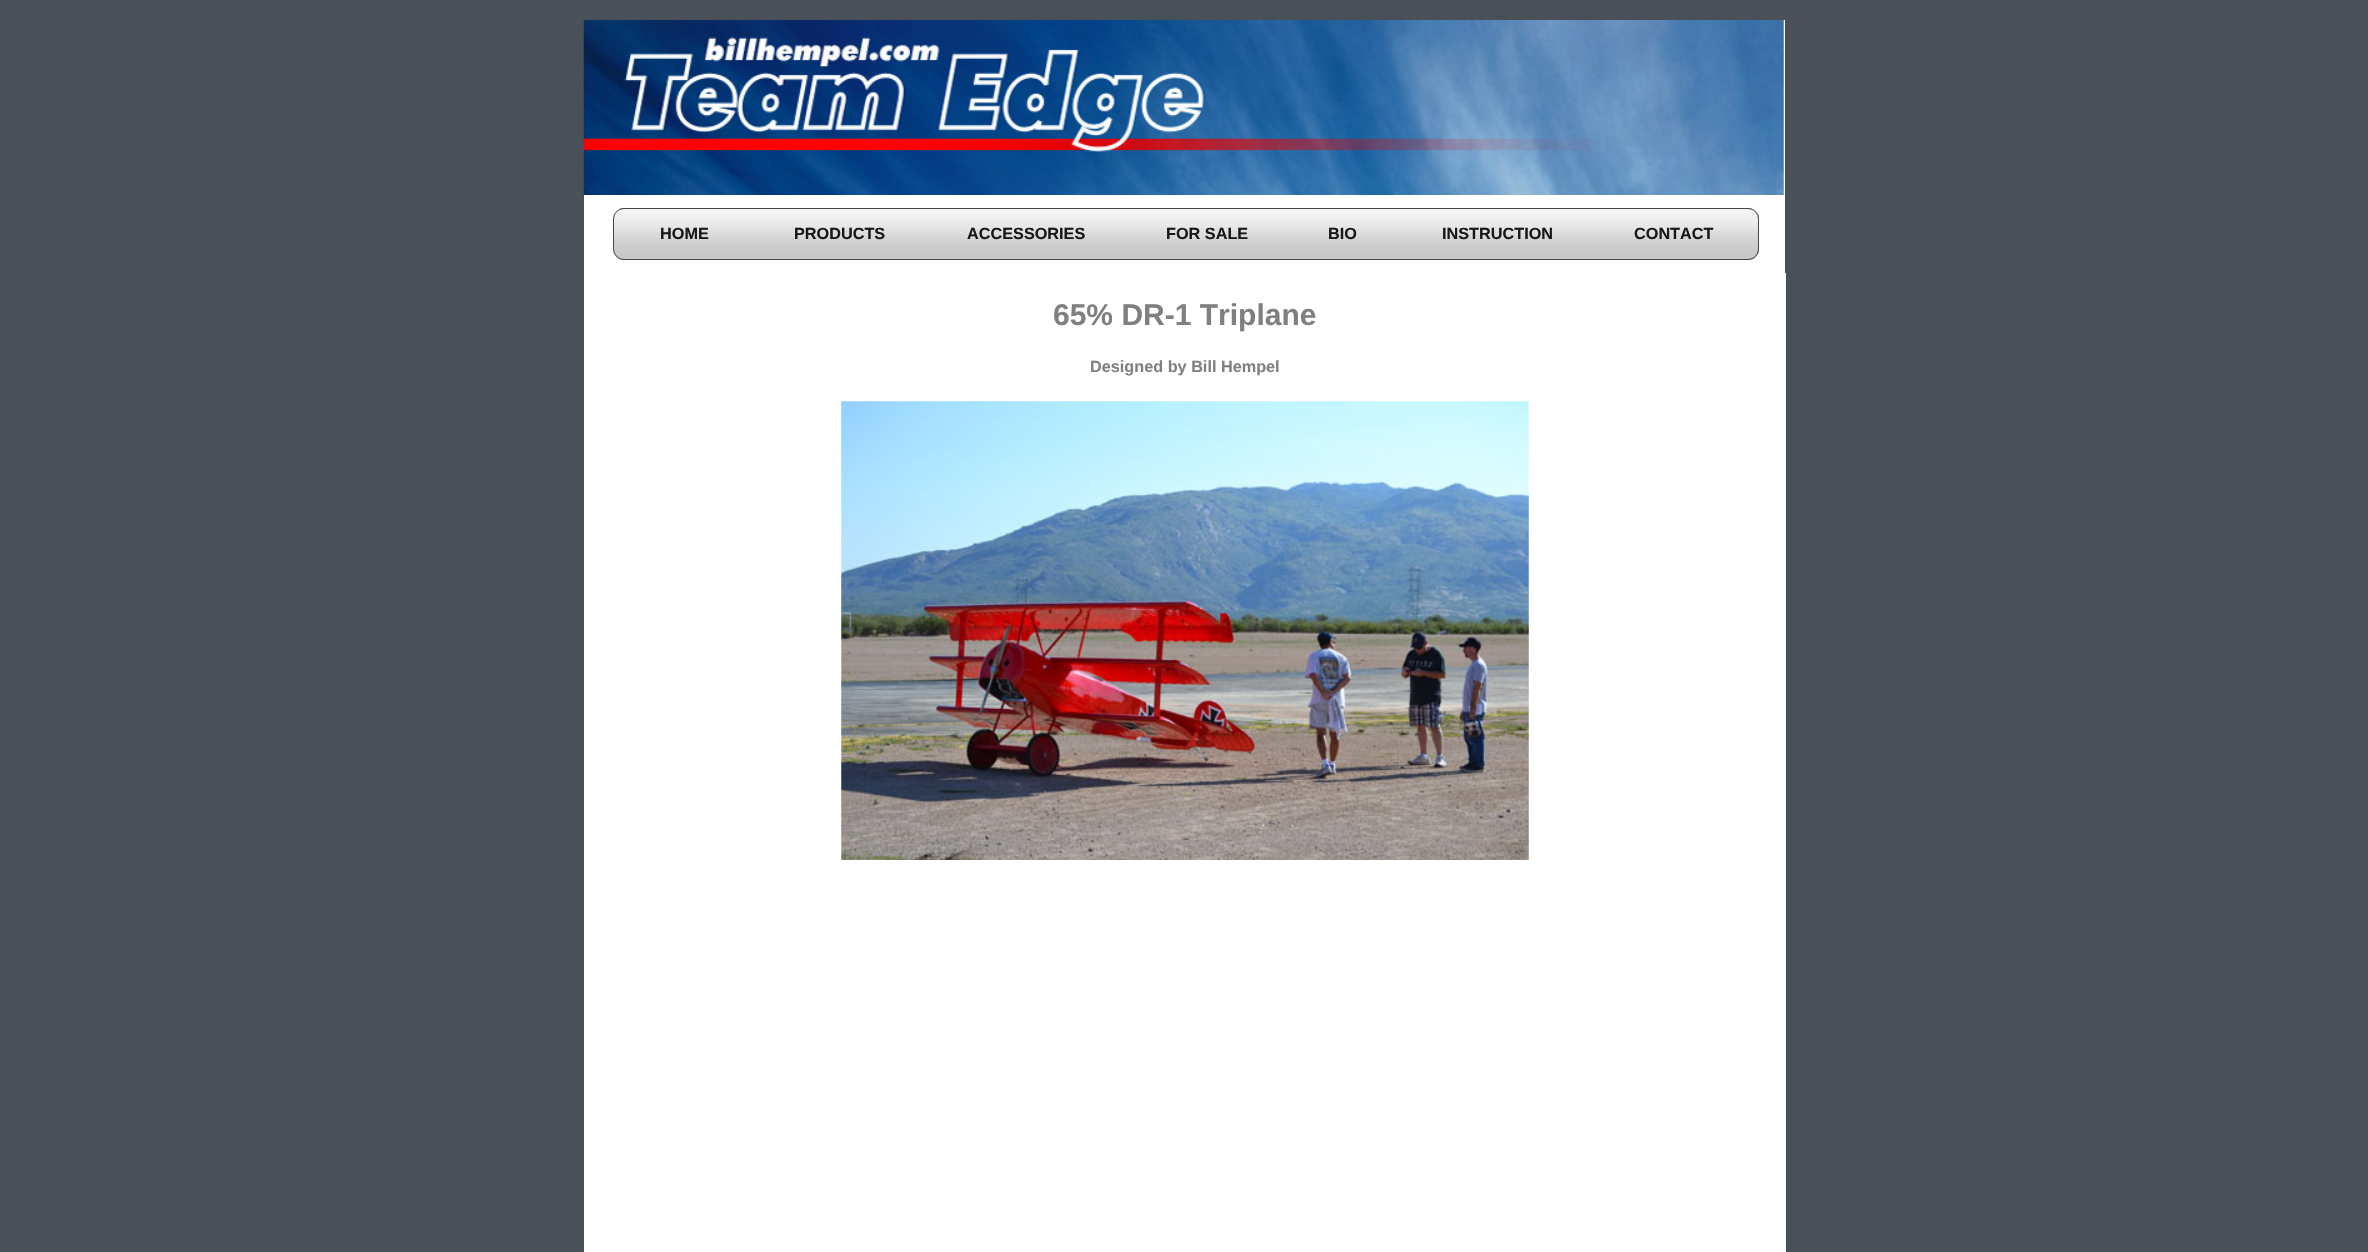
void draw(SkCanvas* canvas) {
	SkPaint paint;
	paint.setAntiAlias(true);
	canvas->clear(0xff495057);
	paint.setColor(0xffffffff);
	canvas->drawRect(SkRect::MakeXYWH(584, 20, 1201, 253), paint);
	canvas->drawImageRect(SkImages::DeferredFromEncodedData(SkData::MakeFromFileName("img1.png")), SkRect::MakeXYWH(583, 20, 1201, 175), SkSamplingOptions());
	paint.setColor(0xff444444);
	canvas->drawRoundRect(SkRect::MakeXYWH(613, 208, 1146, 52), 11, 11, paint);
	canvas->drawImageRect(SkImages::DeferredFromEncodedData(SkData::MakeFromFileName("img2.png")), SkRect::MakeXYWH(613, 208, 1146, 52), SkSamplingOptions());
	paint.setStroke(true);
	paint.setStrokeWidth(1);
	paint.setColor(0xff454545);
	canvas->drawRoundRect(SkRect::MakeXYWH(613.5, 208.5, 1145, 51), 10.5, 10.5, paint);
	SkFont f1(fontMgr->matchFamilyStyle("Liberation Sans", SkFontStyle::Bold()), 16.25);
	f1.setSubpixel(true);
	paint.setStroke(false);
	paint.setColor(0xff181818);
	canvas->drawString("HOME", 660, 239, f1, paint);
	canvas->drawString("PRODUCTS", 794, 239, f1, paint);
	canvas->drawString("ACCESSORIES", 967, 239, f1, paint);
	canvas->drawString("FOR SALE", 1166, 239, f1, paint);
	canvas->drawString("BIO", 1328, 239, f1, paint);
	canvas->drawString("INSTRUCTION", 1442, 239, f1, paint);
	canvas->drawString("CONTACT", 1634, 239, f1, paint);
	paint.setColor(0xffffffff);
	canvas->drawRect(SkRect::MakeXYWH(584, 273, 1202, 979), paint);
	SkFont f2(fontMgr->matchFamilyStyle("Liberation Sans", SkFontStyle::Bold()), 30);
	f2.setSubpixel(true);
	paint.setColor(0xff808080);
	canvas->drawString("65% DR-1 Triplane", 1053, 325, f2, paint);
	canvas->drawString("Designed by Bill Hempel", 1090, 372, f1, paint);
	canvas->drawImageRect(SkImages::DeferredFromEncodedData(SkData::MakeFromFileName("img3.png")), SkRect::MakeXYWH(841, 401, 688, 459), SkSamplingOptions());
}
